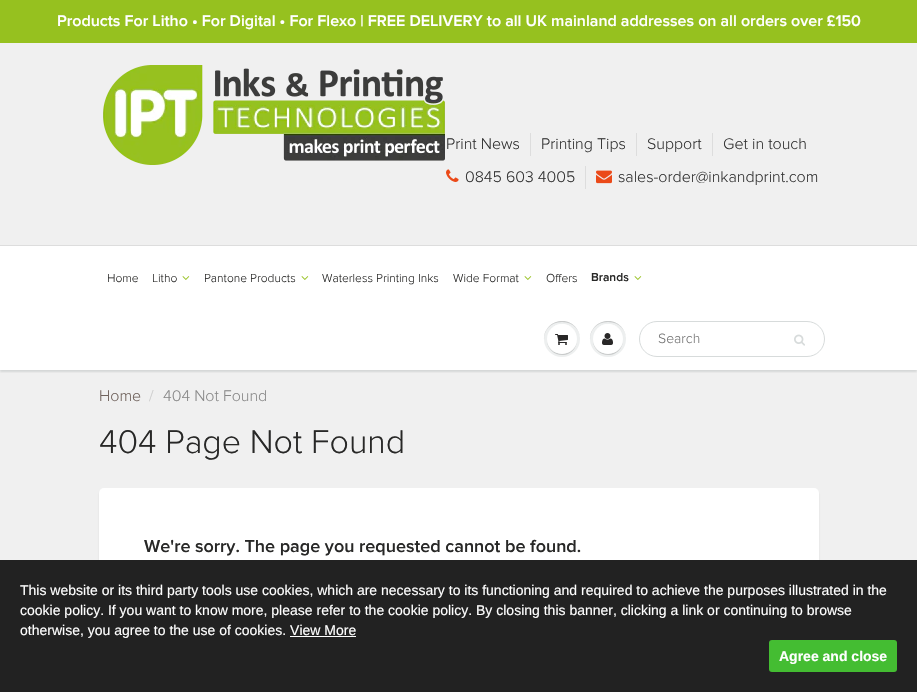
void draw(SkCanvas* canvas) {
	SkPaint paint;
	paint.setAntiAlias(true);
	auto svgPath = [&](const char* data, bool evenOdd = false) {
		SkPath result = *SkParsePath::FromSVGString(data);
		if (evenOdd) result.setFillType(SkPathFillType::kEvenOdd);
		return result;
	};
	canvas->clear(0xffffffff);
	paint.setColor(0xff96c11f);
	canvas->drawRect(SkRect::MakeXYWH(0, 0, 917, 43), paint);
	SkFont f1(fontMgr->matchFamilyStyle("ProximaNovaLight", SkFontStyle(600, SkFontStyle::kNormal_Width, SkFontStyle::kUpright_Slant)), 16);
	f1.setSubpixel(true);
	paint.setColor(0xffffffff);
	canvas->drawString("Products For Litho • For Digital • For Flexo | FREE DELIVERY to all UK mainland addresses on all orders over £150", 57, 26, f1, paint);
	paint.setColor(0xfff0f0f0);
	canvas->drawRect(SkRect::MakeXYWH(0, 43, 917, 202), paint);
	canvas->drawImageRect(SkImages::DeferredFromEncodedData(SkData::MakeFromFileName("img1.png")), SkRect::MakeXYWH(103, 65, 342, 100), SkSamplingOptions());
	SkFont f2(fontMgr->matchFamilyStyle("ProximaNovaLight", SkFontStyle(300, SkFontStyle::kNormal_Width, SkFontStyle::kUpright_Slant)), 16);
	f2.setSubpixel(true);
	paint.setColor(0xff333333);
	canvas->drawString("Print News", 446, 149, f2, paint);
	paint.setColor(0xffdddddd);
	canvas->drawRect(SkRect::MakeXYWH(530, 133, 1, 23), paint);
	paint.setColor(0xff333333);
	canvas->drawString("Printing Tips", 541, 149, f2, paint);
	paint.setColor(0xffdddddd);
	canvas->drawRect(SkRect::MakeXYWH(636, 133, 1, 23), paint);
	paint.setColor(0xff333333);
	canvas->drawString("Support", 647, 149, f2, paint);
	paint.setColor(0xffdddddd);
	canvas->drawRect(SkRect::MakeXYWH(712, 133, 1, 23), paint);
	paint.setColor(0xff333333);
	canvas->drawString("Get in touch", 723, 149, f2, paint);
	canvas->drawImageRect(SkImages::DeferredFromEncodedData(SkData::MakeFromFileName("img2.png")), SkRect::MakeXYWH(446, 169, 13, 13), SkSamplingOptions());
	canvas->drawString("0845 603 4005", 465, 182, f2, paint);
	paint.setColor(0xffdddddd);
	canvas->drawRect(SkRect::MakeXYWH(585, 166, 1, 23), paint);
	canvas->drawImageRect(SkImages::DeferredFromEncodedData(SkData::MakeFromFileName("img3.png")), SkRect::MakeXYWH(596, 170, 16, 14), SkSamplingOptions());
	paint.setColor(0xff333333);
	canvas->drawString("sales-order@inkandprint.com", 618, 182, f2, paint);
	paint.setColor(0xfff0f0f0);
	canvas->drawRect(SkRect::MakeXYWH(0, 370, 917, 190), paint);
	canvas->save();
	canvas->clipRect(SkRect::MakeXYWH(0, 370, 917, 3));
	paint.setColor(0x1f0b191c);
	paint.setMaskFilter(SkMaskFilter::MakeBlur(kNormal_SkBlurStyle, 1));
	canvas->drawRect(SkRect::MakeXYWH(0, 247, 917, 125), paint);
	paint.setMaskFilter(nullptr);
	canvas->restore();
	paint.setColor(0xffdddddd);
	canvas->drawRect(SkRect::MakeXYWH(0, 245, 917, 1), paint);
	SkFont f3(fontMgr->matchFamilyStyle("ProximaNovaLight", SkFontStyle(300, SkFontStyle::kNormal_Width, SkFontStyle::kUpright_Slant)), 12);
	f3.setSubpixel(true);
	paint.setColor(0xff282827);
	canvas->drawString("Home", 107, 282, f3, paint);
	canvas->drawString("Litho", 152, 282, f3, paint);
	canvas->drawImageRect(SkImages::DeferredFromEncodedData(SkData::MakeFromFileName("img4.png")), SkRect::MakeXYWH(182, 276, 8, 4), SkSamplingOptions());
	canvas->drawString("Pantone Products", 204, 282, f3, paint);
	canvas->drawImageRect(SkImages::DeferredFromEncodedData(SkData::MakeFromFileName("img4.png")), SkRect::MakeXYWH(301, 276, 8, 4), SkSamplingOptions());
	canvas->drawString("Waterless Printing Inks", 322, 282, f3, paint);
	canvas->drawString("Wide Format", 453, 282, f3, paint);
	canvas->drawImageRect(SkImages::DeferredFromEncodedData(SkData::MakeFromFileName("img4.png")), SkRect::MakeXYWH(524, 276, 8, 4), SkSamplingOptions());
	canvas->drawString("Offers", 546, 282, f3, paint);
	SkFont f4(fontMgr->matchFamilyStyle("ProximaNovaLight", SkFontStyle(600, SkFontStyle::kNormal_Width, SkFontStyle::kUpright_Slant)), 12);
	f4.setSubpixel(true);
	canvas->drawString("Brands", 591, 281, f4, paint);
	canvas->drawImageRect(SkImages::DeferredFromEncodedData(SkData::MakeFromFileName("img4.png")), SkRect::MakeXYWH(634, 276, 8, 4), SkSamplingOptions());
	paint.setColor(0xffedefef);
	canvas->drawCircle(562, 339, 18, paint);
	paint.setColor(0xffc9cbcb);
	canvas->drawPath(svgPath("M562 322C574 322 580 330.5 580 339.5C580 336 579 332 577 329C567 314 543.5 321.5 544 339.5C544 330.5 550 322 562 322Z"), paint);
	canvas->drawPath(svgPath("M577 339.5C576.5 358.5 547.5 358.5 547 339.5C546.5 354.5 566 361 574.5 348.5C576 346 577 342.5 577 339.5Z"), paint);
	paint.setColor(0xffffffff);
	canvas->drawCircle(562, 339, 15, paint);
	canvas->drawPath(svgPath("M562 325C572 325 577 332 577 339.5C577 336.5 576 333 574.5 330.5C566 318 546.5 324.5 547 339.5C547 332 552 325 562 325Z"), paint);
	canvas->drawImageRect(SkImages::DeferredFromEncodedData(SkData::MakeFromFileName("img5.png")), SkRect::MakeXYWH(555, 334, 13, 11), SkSamplingOptions());
	paint.setColor(0xffedefef);
	canvas->drawCircle(608, 339, 18, paint);
	paint.setColor(0xffc9cbcb);
	canvas->drawPath(svgPath("M608 322C620 322 626 330.5 626 339.5C626 336 625 332 623 329C613 314 589.5 321.5 590 339.5C590 330.5 596 322 608 322Z"), paint);
	canvas->drawPath(svgPath("M623 339.5C622.5 358.5 593.5 358.5 593 339.5C592.5 354.5 612 361 620.5 348.5C622 346 623 342.5 623 339.5Z"), paint);
	paint.setColor(0xffffffff);
	canvas->drawCircle(608, 339, 15, paint);
	canvas->drawPath(svgPath("M608 325C618 325 623 332 623 339.5C623 336.5 622 333 620.5 330.5C612 318 592.5 324.5 593 339.5C593 332 598 325 608 325Z"), paint);
	canvas->drawImageRect(SkImages::DeferredFromEncodedData(SkData::MakeFromFileName("img6.png")), SkRect::MakeXYWH(602, 333, 11, 12), SkSamplingOptions());
	paint.setStroke(true);
	paint.setStrokeWidth(1);
	paint.setColor(0xffd7dbdb);
	canvas->drawRoundRect(SkRect::MakeXYWH(639.5, 321.5, 185, 35), 17.5, 17.5, paint);
	SkFont f5(fontMgr->matchFamilyStyle("ProximaNovaLight", SkFontStyle(300, SkFontStyle::kNormal_Width, SkFontStyle::kUpright_Slant)), 14);
	f5.setSubpixel(true);
	paint.setStroke(false);
	paint.setColor(0xff757575);
	canvas->drawString("Search", 658, 343, f5, paint);
	canvas->drawImageRect(SkImages::DeferredFromEncodedData(SkData::MakeFromFileName("img7.png")), SkRect::MakeXYWH(794, 334, 11, 12), SkSamplingOptions());
	paint.setColor(0xff70635d);
	canvas->drawString("Home", 99, 401, f2, paint);
	paint.setColor(0xffcccccc);
	canvas->drawString("/", 149, 401, f2, paint);
	paint.setColor(0xff898989);
	canvas->drawString("404 Not Found", 163, 401, f2, paint);
	SkFont f6(fontMgr->matchFamilyStyle("ProximaNovaLight", SkFontStyle(300, SkFontStyle::kNormal_Width, SkFontStyle::kUpright_Slant)), 34);
	f6.setSubpixel(true);
	paint.setColor(0xff282827);
	canvas->drawString("404 Page Not Found", 99, 453, f6, paint);
	paint.setColor(0x1a0b191c);
	paint.setMaskFilter(SkMaskFilter::MakeBlur(kNormal_SkBlurStyle, 1));
	canvas->drawRoundRect(SkRect::MakeXYWH(99, 490, 720, 159), 5, 5, paint);
	paint.setMaskFilter(nullptr);
	paint.setColor(0xffffffff);
	canvas->drawRoundRect(SkRect::MakeXYWH(99, 488, 720, 159), 5, 5, paint);
	SkFont f7(fontMgr->matchFamilyStyle("ProximaNovaLight", SkFontStyle(600, SkFontStyle::kNormal_Width, SkFontStyle::kUpright_Slant)), 18);
	f7.setSubpixel(true);
	paint.setColor(0xff282827);
	canvas->drawString("We're sorry. The page you requested cannot be found.", 144, 552, f7, paint);
	paint.setColor(0xff222222);
	canvas->drawRect(SkRect::MakeXYWH(0, 560, 917, 132), paint);
	SkFont f8(fontMgr->matchFamilyStyle("Liberation Sans", SkFontStyle::Normal()), 14);
	f8.setSubpixel(true);
	paint.setColor(0xffffffff);
	canvas->drawString("This website or its third party tools use cookies, which are necessary to its functioning and required to achieve the purposes illustrated in the", 20, 595, f8, paint);
	canvas->drawString("cookie policy. If you want to know more, please refer to the cookie policy. By closing this banner, clicking a link or continuing to browse", 20, 615, f8, paint);
	canvas->drawString("otherwise, you agree to the use of cookies. View More", 20, 635, f8, paint);
	canvas->drawRect(SkRect::MakeXYWH(290, 636, 66, 1), paint);
	paint.setColor(0xff44bd32);
	canvas->drawRoundRect(SkRect::MakeXYWH(769, 640, 128, 32), 3, 3, paint);
	SkFont f9(fontMgr->matchFamilyStyle("Liberation Sans", SkFontStyle::Bold()), 14);
	f9.setSubpixel(true);
	paint.setColor(0xffffffff);
	canvas->drawString("Agree and close", 779, 661, f9, paint);
}
